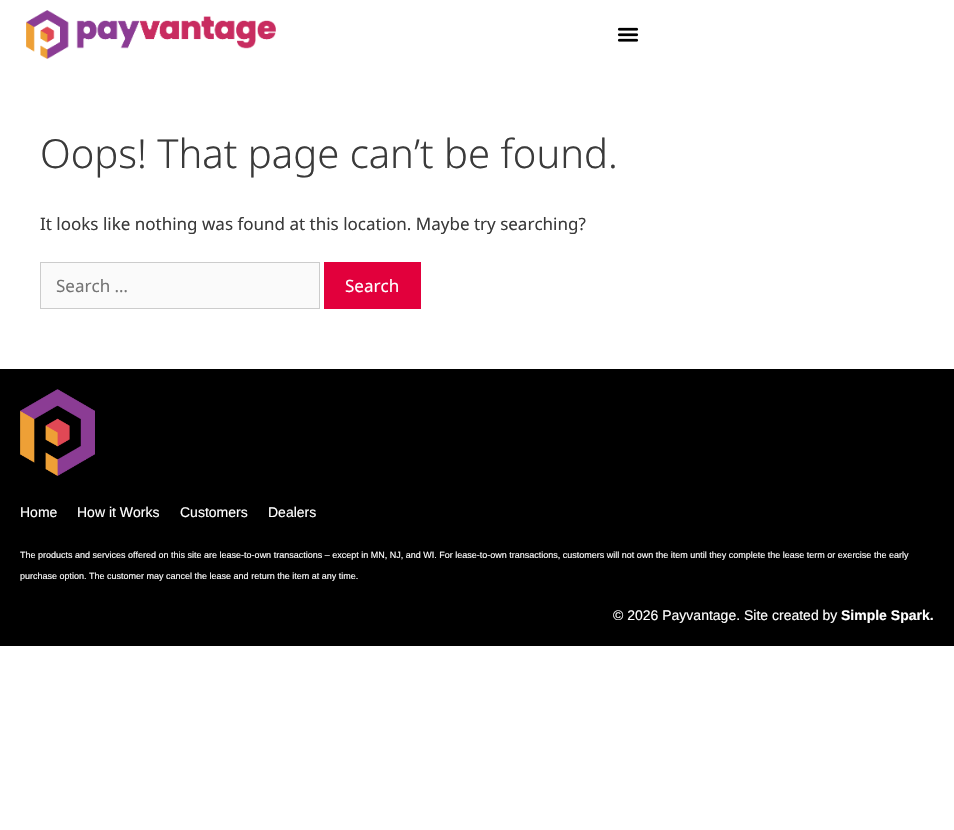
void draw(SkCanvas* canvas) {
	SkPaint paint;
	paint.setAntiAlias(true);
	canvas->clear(0xffffffff);
	canvas->drawImageRect(SkImages::DeferredFromEncodedData(SkData::MakeFromFileName("img1.png")), SkRect::MakeXYWH(26, 10, 250, 49), SkSamplingOptions());
	canvas->drawImageRect(SkImages::DeferredFromEncodedData(SkData::MakeFromFileName("img2.png")), SkRect::MakeXYWH(617, 27, 22, 15), SkSamplingOptions());
	SkFont f1(fontMgr->matchFamilyStyle("Noto Sans", SkFontStyle(300, SkFontStyle::kNormal_Width, SkFontStyle::kUpright_Slant)), 40);
	f1.setSubpixel(true);
	paint.setColor(0xff3a3a3a);
	canvas->drawString("Oops! That page can’t be found.", 40, 168, f1, paint);
	SkFont f2(fontMgr->matchFamilyStyle("Noto Sans", SkFontStyle::Normal()), 17);
	f2.setSubpixel(true);
	canvas->drawString("It looks like nothing was found at this location. Maybe try searching?", 40, 230, f2, paint);
	paint.setColor(0xfffafafa);
	canvas->drawRect(SkRect::MakeXYWH(40.5, 262.5, 279, 46), paint);
	paint.setStroke(true);
	paint.setStrokeWidth(1);
	paint.setColor(0xffcccccc);
	canvas->drawRect(SkRect::MakeXYWH(40.5, 262.5, 279, 46), paint);
	paint.setStroke(false);
	paint.setColor(0xff757575);
	canvas->drawString("Search …", 56, 292, f2, paint);
	paint.setColor(0xffe2003c);
	canvas->drawRect(SkRect::MakeXYWH(324, 262, 97, 47), paint);
	paint.setColor(0xffffffff);
	canvas->drawString("Search", 345, 292, f2, paint);
	paint.setColor(0xff000000);
	canvas->drawRect(SkRect::MakeXYWH(0, 369, 954, 277), paint);
	canvas->drawImageRect(SkImages::DeferredFromEncodedData(SkData::MakeFromFileName("img3.png")), SkRect::MakeXYWH(20, 389, 75, 87), SkSamplingOptions());
	SkFont f3(fontMgr->matchFamilyStyle("Liberation Sans", SkFontStyle::Normal()), 14);
	f3.setSubpixel(true);
	paint.setColor(0xffffffff);
	canvas->drawString("Home", 20, 517, f3, paint);
	canvas->drawString("How it Works", 77, 517, f3, paint);
	canvas->drawString("Customers", 180, 517, f3, paint);
	canvas->drawString("Dealers", 268, 517, f3, paint);
	SkFont f4(fontMgr->matchFamilyStyle("Liberation Sans", SkFontStyle::Normal()), 9);
	f4.setSubpixel(true);
	canvas->drawString("The products and services offered on this site are lease-to-own transactions – except in MN, NJ, and WI. For lease-to-own transactions, customers will not own the item until they complete the lease term or exercise the early", 20, 558, f4, paint);
	canvas->drawString("purchase option. The customer may cancel the lease and return the item at any time.", 20, 579, f4, paint);
	canvas->drawString("© 2026 Payvantage. Site created by", 613, 620, f3, paint);
	SkFont f5(fontMgr->matchFamilyStyle("Liberation Sans", SkFontStyle::Bold()), 14);
	f5.setSubpixel(true);
	canvas->drawString("Simple Spark.", 841, 620, f5, paint);
}
